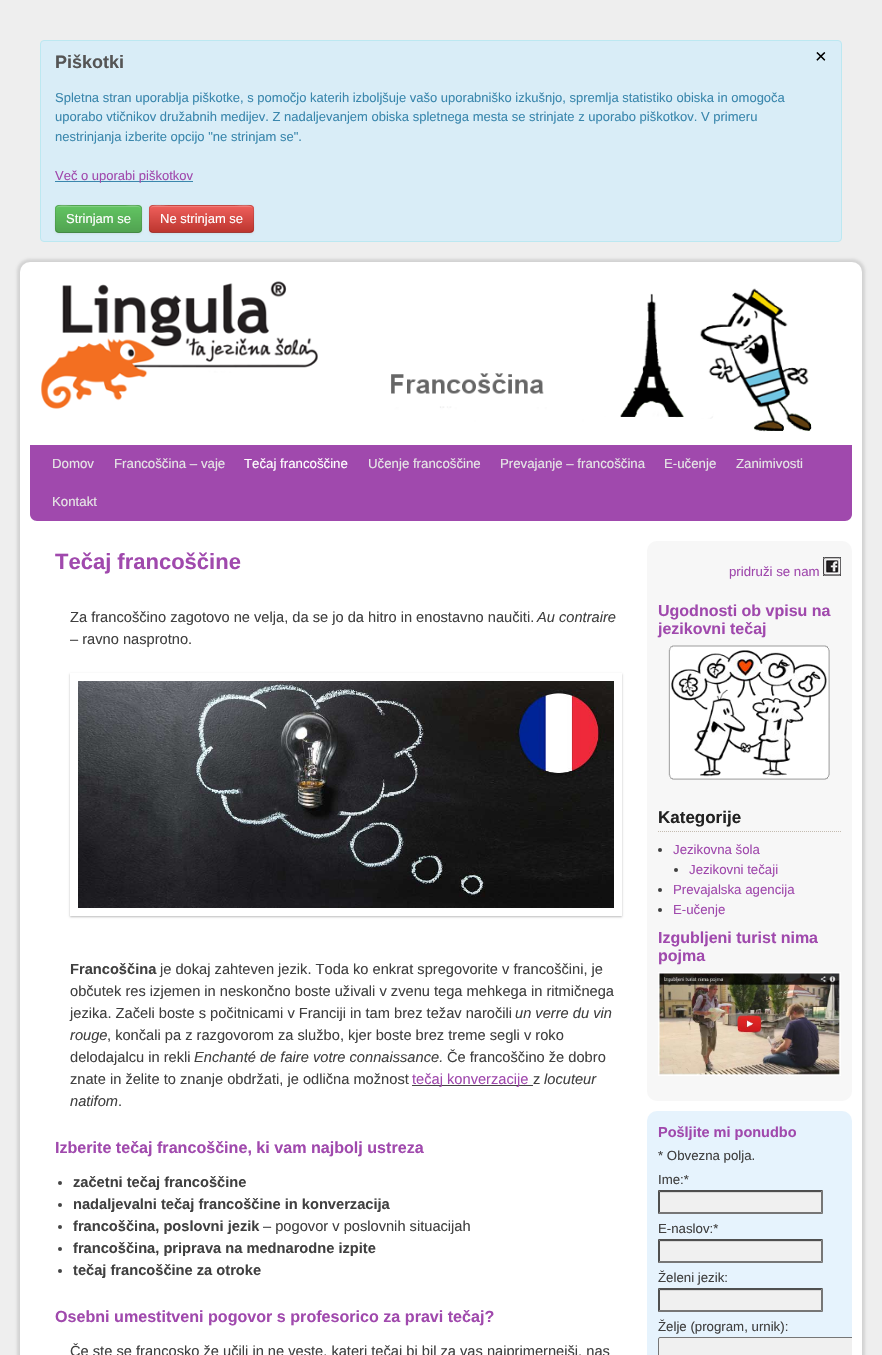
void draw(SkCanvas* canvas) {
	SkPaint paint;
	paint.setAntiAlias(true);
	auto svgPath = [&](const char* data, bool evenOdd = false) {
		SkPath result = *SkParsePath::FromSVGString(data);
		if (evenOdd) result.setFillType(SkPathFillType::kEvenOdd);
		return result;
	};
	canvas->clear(0xffeeeeee);
	paint.setColor(0xffd9edf7);
	canvas->drawRoundRect(SkRect::MakeXYWH(40.5, 40.5, 801, 201), 3.5, 3.5, paint);
	paint.setStroke(true);
	paint.setStrokeWidth(1);
	paint.setColor(0xffbce8f1);
	canvas->drawRoundRect(SkRect::MakeXYWH(40.5, 40.5, 801, 201), 3.5, 3.5, paint);
	SkFont f1(fontMgr->matchFamilyStyle("Liberation Sans", SkFontStyle::Bold()), 18);
	f1.setSubpixel(true);
	paint.setStroke(false);
	paint.setColor(0xff555555);
	canvas->drawString("Piškotki", 55, 68, f1, paint);
	SkFont f2(fontMgr->matchFamilyStyle("Liberation Sans", SkFontStyle::Normal()), 20);
	f2.setSubpixel(true);
	paint.setColor(0xff000000);
	canvas->drawString("×", 815, 63, f2, paint);
	SkFont f3(fontMgr->matchFamilyStyle("Liberation Sans", SkFontStyle::Normal()), 13);
	f3.setSubpixel(true);
	paint.setColor(0xff3a87ad);
	canvas->drawString("Spletna stran uporablja piškotke, s pomočjo katerih izboljšuje vašo uporabniško izkušnjo, spremlja statistiko obiska in omogoča", 55, 102, f3, paint);
	canvas->drawString("uporabo vtičnikov družabnih medijev. Z nadaljevanjem obiska spletnega mesta se strinjate z uporabo piškotkov. V primeru", 55, 121, f3, paint);
	canvas->drawString("nestrinjanja izberite opcijo \"ne strinjam se\".", 55, 141, f3, paint);
	canvas->drawRect(SkRect::MakeXYWH(55, 181, 138, 1), paint);
	paint.setColor(0xffa049ad);
	canvas->drawString("Več o uporabi piškotkov", 55, 180, f3, paint);
	paint.setColor(0x0d000000);
	paint.setMaskFilter(SkMaskFilter::MakeBlur(kNormal_SkBlurStyle, 1));
	canvas->drawRoundRect(SkRect::MakeXYWH(55, 206, 87, 28), 4, 4, paint);
	paint.setMaskFilter(nullptr);
	paint.setColor(0xff5bb75b);
	canvas->drawRoundRect(SkRect::MakeXYWH(55, 205, 87, 28), 4, 4, paint);
	canvas->save();
	canvas->clipPath(svgPath("M59 205H138C140 205 142 207 142 209V229C142 231 140 233 138 233H59C57 233 55 231 55 229V209C55 207 57 205 59 205Z"), true);
	{
		const SkColor colors[] = {0xff62c462, 0xff51a351};
		const float stops[] = {0, 1};
		const SkPoint ends[] = {{99, 206}, {99, 232}};
		paint.setShader(SkGradientShader::MakeLinear(ends, colors, stops, 2, SkTileMode::kClamp));
		paint.setAlpha(255);
	}
	canvas->drawRect(SkRect::MakeXYWH(55, 206, 87, 26), paint);
	canvas->restore();
	paint.setShader(nullptr);
	paint.setColor(0x33ffffff);
	canvas->drawPath(svgPath("M59 207H138C140 207 141 208 141 210C141 203 129 206 125 206H72C68 206 56 203 56 210C56 208 57 207 59 207Z"), paint);
	paint.setStroke(true);
	paint.setColor(0x40000000);
	canvas->drawPath(svgPath("M140.5 231.5L138.5 232.5H58.5L56.5 231.5"), paint);
	paint.setColor(0x1a000000);
	canvas->drawPath(svgPath("M56.5 231.5C54.5 229 55.5 221.5 55.5 219C55.5 202.5 54 205.5 72 205.5H125C145 205.5 141.5 203 141.5 222.5C141.5 225 142.5 229.5 140.5 231.5"), paint);
	paint.setStroke(false);
	paint.setColor(0xffffffff);
	canvas->drawString("Strinjam se", 66, 223, f3, paint);
	paint.setColor(0x0d000000);
	paint.setMaskFilter(SkMaskFilter::MakeBlur(kNormal_SkBlurStyle, 1));
	canvas->drawRoundRect(SkRect::MakeXYWH(149, 206, 105, 28), 4, 4, paint);
	paint.setMaskFilter(nullptr);
	paint.setColor(0xffda4f49);
	canvas->drawRoundRect(SkRect::MakeXYWH(149, 205, 105, 28), 4, 4, paint);
	canvas->save();
	canvas->clipPath(svgPath("M153 205H250C252 205 254 207 254 209V229C254 231 252 233 250 233H153C151 233 149 231 149 229V209C149 207 151 205 153 205Z"), true);
	{
		const SkColor colors[] = {0xffee5f5b, 0xffbd362f};
		const float stops[] = {0, 1};
		const SkPoint ends[] = {{202, 206}, {202, 232}};
		paint.setShader(SkGradientShader::MakeLinear(ends, colors, stops, 2, SkTileMode::kClamp));
		paint.setAlpha(255);
	}
	canvas->drawRect(SkRect::MakeXYWH(149, 206, 105, 26), paint);
	canvas->restore();
	paint.setShader(nullptr);
	paint.setColor(0x33ffffff);
	canvas->drawPath(svgPath("M153 207H250C252 207 253 208 253 210C253 202 237 206 234 206H169C166 206 150 202 150 210C150 208 151 207 153 207Z"), paint);
	paint.setStroke(true);
	paint.setColor(0x40000000);
	canvas->drawPath(svgPath("M252.5 231.5L250 232.5H152.5L150.5 231.5"), paint);
	paint.setColor(0x1a000000);
	canvas->drawPath(svgPath("M150.5 231.5C148.5 229.5 149.5 225 149.5 222.5C149.5 202 146.5 205.5 169 205.5H234C256.5 205.5 253.5 202 253.5 222.5C253.5 225 254.5 229.5 252.5 231.5"), paint);
	paint.setStroke(false);
	paint.setColor(0xffffffff);
	canvas->drawString("Ne strinjam se", 160, 223, f3, paint);
	paint.setColor(0x407f7f7f);
	paint.setMaskFilter(SkMaskFilter::MakeBlur(kNormal_SkBlurStyle, 1.5));
	canvas->drawRoundRect(SkRect::MakeXYWH(17, 259, 848, 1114), 13, 13, paint);
	paint.setMaskFilter(nullptr);
	paint.setColor(0xffffffff);
	canvas->drawRoundRect(SkRect::MakeXYWH(20, 262, 842, 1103), 10, 10, paint);
	canvas->drawImageRect(SkImages::DeferredFromEncodedData(SkData::MakeFromFileName("img1.png")), SkRect::MakeXYWH(41, 281, 277, 128), SkSamplingOptions());
	canvas->drawImageRect(SkImages::DeferredFromEncodedData(SkData::MakeFromFileName("img2.png")), SkRect::MakeXYWH(391, 288, 421, 144), SkSamplingOptions());
	paint.setColor(0xffa049ad);
	canvas->drawPath(svgPath("M30 445H852V514C852 518 849 521 845 521H37C33 521 30 518 30 514Z"), paint);
	SkFont f4(fontMgr->matchFamilyStyle("Liberation Sans", SkFontStyle::Normal()), 13.25);
	f4.setSubpixel(true);
	paint.setColor(0xffe6e6e6);
	canvas->drawString("Domov", 52, 468, f4, paint);
	canvas->drawString("Francoščina – vaje", 114, 468, f4, paint);
	paint.setColor(0xffffffff);
	canvas->drawString("Tečaj francoščine", 244, 468, f4, paint);
	paint.setColor(0xffe6e6e6);
	canvas->drawString("Učenje francoščine", 368, 468, f4, paint);
	canvas->drawString("Prevajanje – francoščina", 500, 468, f4, paint);
	canvas->drawString("E-učenje", 664, 468, f4, paint);
	canvas->drawString("Zanimivosti", 736, 468, f4, paint);
	canvas->drawString("Kontakt", 52, 506, f4, paint);
	SkFont f5(fontMgr->matchFamilyStyle("Liberation Sans", SkFontStyle::Bold()), 22);
	f5.setSubpixel(true);
	paint.setColor(0xffa049ad);
	canvas->drawString("Tečaj francoščine", 55, 569, f5, paint);
	SkFont f6(fontMgr->matchFamilyStyle("Liberation Sans", SkFontStyle::Normal()), 14.65);
	f6.setSubpixel(true);
	paint.setColor(0xff404040);
	canvas->drawString("Za francoščino zagotovo ne velja, da se jo da hitro in enostavno naučiti.", 70, 622, f6, paint);
	SkFont f7(fontMgr->matchFamilyStyle("Liberation Sans", SkFontStyle::Italic()), 14.65);
	f7.setSubpixel(true);
	canvas->drawString("Au contraire", 537, 622, f7, paint);
	canvas->drawString("– ravno nasprotno.", 70, 644, f6, paint);
	canvas->save();
	canvas->clipPath(svgPath("M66 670H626V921H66ZM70 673H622V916H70Z", true), true);
	paint.setColor(0xffbbbbbb);
	paint.setMaskFilter(SkMaskFilter::MakeBlur(kNormal_SkBlurStyle, 1));
	canvas->drawRect(SkRect::MakeXYWH(70, 674, 552, 243), paint);
	paint.setMaskFilter(nullptr);
	canvas->restore();
	canvas->drawImageRect(SkImages::DeferredFromEncodedData(SkData::MakeFromFileName("img3.png")), SkRect::MakeXYWH(78, 681, 536, 227), SkSamplingOptions());
	SkFont f8(fontMgr->matchFamilyStyle("Liberation Sans", SkFontStyle::Bold()), 14.65);
	f8.setSubpixel(true);
	paint.setColor(0xff404040);
	canvas->drawString("Francoščina", 70, 974, f8, paint);
	canvas->drawString("je dokaj zahteven jezik. Toda ko enkrat spregovorite v francoščini, je", 160, 974, f6, paint);
	canvas->drawString("občutek res izjemen in neskončno boste uživali v zvenu tega mehkega in ritmičnega", 70, 996, f6, paint);
	canvas->drawString("jezika. Začeli boste s počitnicami v Franciji in tam brez težav naročili", 70, 1018, f6, paint);
	canvas->drawString("un verre du vin", 515, 1018, f7, paint);
	canvas->drawString("rouge", 70, 1040, f7, paint);
	canvas->drawString(", končali pa z razgovorom za službo, kjer boste brez treme segli v roko", 107, 1040, f6, paint);
	canvas->drawString("delodajalcu in rekli", 70, 1062, f6, paint);
	canvas->drawString("Enchanté de faire votre connaissance.", 194, 1062, f7, paint);
	canvas->drawString("Če francoščino že dobro", 447, 1062, f6, paint);
	canvas->drawString("znate in želite to znanje obdržati, je odlična možnost", 70, 1084, f6, paint);
	paint.setColor(0xff444444);
	canvas->drawRect(SkRect::MakeXYWH(412, 1085, 121, 1), paint);
	paint.setColor(0xffa049ad);
	canvas->drawString("tečaj konverzacije", 412, 1084, f6, paint);
	paint.setColor(0xff404040);
	canvas->drawString("z", 533, 1084, f6, paint);
	canvas->drawString("locuteur", 544, 1084, f7, paint);
	canvas->drawString("natifom", 70, 1106, f7, paint);
	canvas->drawString(".", 118, 1106, f6, paint);
	SkFont f9(fontMgr->matchFamilyStyle("Liberation Sans", SkFontStyle::Bold()), 16.1);
	f9.setSubpixel(true);
	paint.setColor(0xffa049ad);
	canvas->drawString("Izberite tečaj francoščine, ki vam najbolj ustreza", 55, 1153, f9, paint);
	paint.setColor(0xff444444);
	canvas->drawCircle(60, 1183, 2, paint);
	paint.setColor(0xff404040);
	canvas->drawString("začetni tečaj francoščine", 73, 1187, f8, paint);
	paint.setColor(0xff444444);
	canvas->drawCircle(60, 1205, 2, paint);
	paint.setColor(0xff404040);
	canvas->drawString("nadaljevalni tečaj francoščine in konverzacija", 73, 1209, f8, paint);
	paint.setColor(0xff444444);
	canvas->drawCircle(60, 1227, 2, paint);
	paint.setColor(0xff404040);
	canvas->drawString("francoščina, poslovni jezik", 73, 1231, f8, paint);
	canvas->drawString("– pogovor v poslovnih situacijah", 263, 1231, f6, paint);
	paint.setColor(0xff444444);
	canvas->drawCircle(60, 1249, 2, paint);
	paint.setColor(0xff404040);
	canvas->drawString("francoščina, priprava na mednarodne izpite", 73, 1253, f8, paint);
	paint.setColor(0xff444444);
	canvas->drawCircle(60, 1271, 2, paint);
	paint.setColor(0xff404040);
	canvas->drawString("tečaj francoščine za otroke", 73, 1275, f8, paint);
	paint.setColor(0xffa049ad);
	canvas->drawString("Osebni umestitveni pogovor s profesorico za pravi tečaj?", 55, 1322, f9, paint);
	paint.setColor(0xff404040);
	canvas->drawString("Če ste se francosko že učili in ne veste, kateri tečaj bi bil za vas najprimernejši, nas", 70, 1356, f6, paint);
	paint.setColor(0xfff7f7f7);
	canvas->drawRoundRect(SkRect::MakeXYWH(647, 541, 205, 560), 10, 10, paint);
	paint.setColor(0xffa049ad);
	canvas->drawString("pridruži se nam", 729, 576, f4, paint);
	canvas->drawImageRect(SkImages::DeferredFromEncodedData(SkData::MakeFromFileName("img4.png")), SkRect::MakeXYWH(823, 557, 18, 19), SkSamplingOptions());
	SkFont f10(fontMgr->matchFamilyStyle("Liberation Sans", SkFontStyle::Bold()), 16);
	f10.setSubpixel(true);
	canvas->drawString("Ugodnosti ob vpisu na", 658, 616, f10, paint);
	canvas->drawString("jezikovni tečaj", 658, 634, f10, paint);
	canvas->drawImageRect(SkImages::DeferredFromEncodedData(SkData::MakeFromFileName("img5.png")), SkRect::MakeXYWH(668, 645, 162, 135), SkSamplingOptions());
	paint.setStroke(true);
	paint.setColor(0xffc4bcb0);
	paint.setPathEffect(SkDashPathEffect::Make({{1, 1}}, 0));
	canvas->drawPath(svgPath("M658 831.5H841"), paint);
	paint.setPathEffect(nullptr);
	SkFont f11(fontMgr->matchFamilyStyle("Liberation Sans", SkFontStyle::Bold()), 17);
	f11.setSubpixel(true);
	paint.setStroke(false);
	paint.setColor(0xff222222);
	canvas->drawString("Kategorije", 658, 823, f11, paint);
	paint.setColor(0xff404040);
	canvas->drawCircle(660, 850, 2, paint);
	paint.setColor(0xffa049ad);
	canvas->drawString("Jezikovna šola", 673, 854, f4, paint);
	paint.setColor(0xff404040);
	canvas->drawCircle(676, 870, 2, paint);
	paint.setColor(0xffa049ad);
	canvas->drawString("Jezikovni tečaji", 689, 874, f4, paint);
	paint.setColor(0xff404040);
	canvas->drawCircle(660, 890, 2, paint);
	paint.setColor(0xffa049ad);
	canvas->drawString("Prevajalska agencija", 673, 894, f4, paint);
	paint.setColor(0xff404040);
	canvas->drawCircle(660, 910, 2, paint);
	paint.setColor(0xffa049ad);
	canvas->drawString("E-učenje", 673, 914, f4, paint);
	canvas->drawString("Izgubljeni turist nima", 658, 943, f10, paint);
	canvas->drawString("pojma", 658, 961, f10, paint);
	canvas->drawImageRect(SkImages::DeferredFromEncodedData(SkData::MakeFromFileName("img6.png")), SkRect::MakeXYWH(658, 972, 183, 104), SkSamplingOptions());
	paint.setColor(0xffe6f3fd);
	canvas->drawRoundRect(SkRect::MakeXYWH(647, 1111, 205, 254), 10, 10, paint);
	SkFont f12(fontMgr->matchFamilyStyle("Liberation Sans", SkFontStyle::Bold()), 14.5);
	f12.setSubpixel(true);
	paint.setColor(0xffa049ad);
	canvas->drawString("Pošljite mi ponudbo", 658, 1137, f12, paint);
	paint.setColor(0xff404040);
	canvas->drawString("* Obvezna polja.", 658, 1160, f4, paint);
	canvas->drawString("Ime:*", 658, 1184, f4, paint);
	paint.setColor(0xfff0f0f0);
	canvas->drawRect(SkRect::MakeXYWH(658, 1190, 165, 24), paint);
	paint.setColor(0xffd8d8d8);
	canvas->drawRect(SkRect::MakeXYWH(660, 1192, 161, 1), paint);
	paint.setColor(0xff4f4f4f);
	canvas->drawPath(svgPath("M658 1190H823L821 1192H660Z"), paint);
	paint.setColor(0xff767676);
	canvas->drawPath(svgPath("M823 1190V1214L821 1212V1192Z"), paint);
	canvas->drawPath(svgPath("M823 1214H658L660 1212H821Z"), paint);
	paint.setColor(0xff4f4f4f);
	canvas->drawPath(svgPath("M658 1214V1190L660 1192V1212Z"), paint);
	paint.setColor(0xff404040);
	canvas->drawString("E-naslov:*", 658, 1233, f4, paint);
	paint.setColor(0xfff0f0f0);
	canvas->drawRect(SkRect::MakeXYWH(658, 1239, 165, 24), paint);
	paint.setColor(0xffd8d8d8);
	canvas->drawRect(SkRect::MakeXYWH(660, 1241, 161, 1), paint);
	paint.setColor(0xff4f4f4f);
	canvas->drawPath(svgPath("M658 1239H823L821 1241H660Z"), paint);
	paint.setColor(0xff767676);
	canvas->drawPath(svgPath("M823 1239V1263L821 1261V1241Z"), paint);
	canvas->drawPath(svgPath("M823 1263H658L660 1261H821Z"), paint);
	paint.setColor(0xff4f4f4f);
	canvas->drawPath(svgPath("M658 1263V1239L660 1241V1261Z"), paint);
	paint.setColor(0xff404040);
	canvas->drawString("Želeni jezik:", 658, 1282, f4, paint);
	paint.setColor(0xfff0f0f0);
	canvas->drawRect(SkRect::MakeXYWH(658, 1288, 165, 24), paint);
	paint.setColor(0xffd8d8d8);
	canvas->drawRect(SkRect::MakeXYWH(660, 1290, 161, 1), paint);
	paint.setColor(0xff4f4f4f);
	canvas->drawPath(svgPath("M658 1288H823L821 1290H660Z"), paint);
	paint.setColor(0xff767676);
	canvas->drawPath(svgPath("M823 1288V1312L821 1310V1290Z"), paint);
	canvas->drawPath(svgPath("M823 1312H658L660 1310H821Z"), paint);
	paint.setColor(0xff4f4f4f);
	canvas->drawPath(svgPath("M658 1312V1288L660 1290V1310Z"), paint);
	paint.setColor(0xff404040);
	canvas->drawString("Želje (program, urnik):", 658, 1331, f4, paint);
	paint.setColor(0xfff0f0f0);
	canvas->drawPath(svgPath("M660 1337H852V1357H660C659 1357 658 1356 658 1355V1339C658 1338 659 1337 660 1337Z"), paint);
	canvas->save();
	canvas->clipRect(SkRect::MakeXYWH(30, 521, 822, 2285));
	paint.setStroke(true);
	paint.setColor(0xff767676);
	canvas->drawRoundRect(SkRect::MakeXYWH(658.5, 1337.5, 211, 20), 1.5, 1.5, paint);
	canvas->restore();
}
